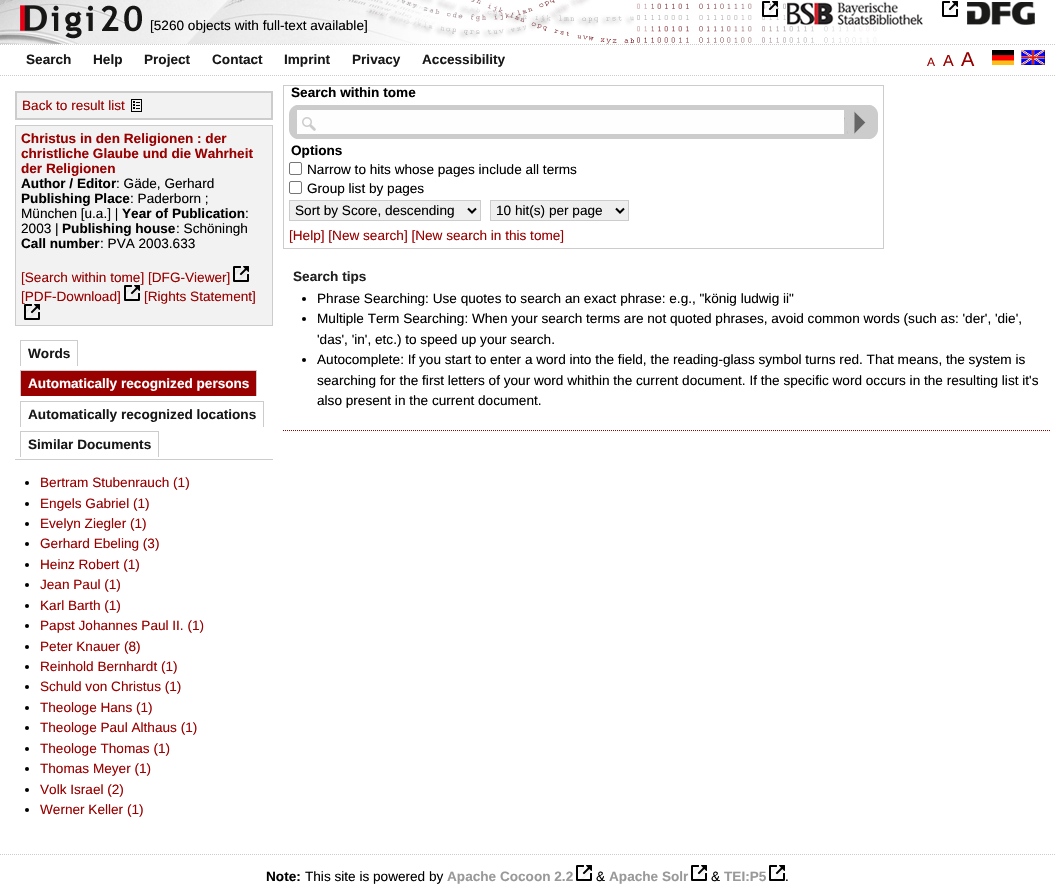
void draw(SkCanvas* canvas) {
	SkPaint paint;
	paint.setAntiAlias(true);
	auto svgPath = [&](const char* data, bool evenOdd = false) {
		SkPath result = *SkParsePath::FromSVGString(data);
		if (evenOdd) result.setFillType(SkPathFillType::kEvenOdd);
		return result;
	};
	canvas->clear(0xffffffff);
	canvas->drawImageRect(SkImages::DeferredFromEncodedData(SkData::MakeFromFileName("img1.png")), SkRect::MakeXYWH(0, 0, 877, 44), SkSamplingOptions());
	canvas->drawImageRect(SkImages::DeferredFromEncodedData(SkData::MakeFromFileName("img2.png")), SkRect::MakeXYWH(787, 1, 136, 24), SkSamplingOptions());
	canvas->drawImageRect(SkImages::DeferredFromEncodedData(SkData::MakeFromFileName("img3.png")), SkRect::MakeXYWH(762, 1, 16, 16), SkSamplingOptions());
	canvas->drawImageRect(SkImages::DeferredFromEncodedData(SkData::MakeFromFileName("img4.png")), SkRect::MakeXYWH(967, 2, 68, 23), SkSamplingOptions());
	canvas->drawImageRect(SkImages::DeferredFromEncodedData(SkData::MakeFromFileName("img5.png")), SkRect::MakeXYWH(942, 1, 16, 16), SkSamplingOptions());
	SkFont f1(fontMgr->matchFamilyStyle("Liberation Sans", SkFontStyle::Normal()), 13.6);
	f1.setSubpixel(true);
	paint.setColor(0xff000000);
	canvas->drawString("[5260 objects with full-text available]", 150, 30, f1, paint);
	paint.setStroke(true);
	paint.setStrokeWidth(1);
	paint.setColor(0xffcccccc);
	paint.setPathEffect(SkDashPathEffect::Make({{1, 1}}, 0));
	canvas->drawPath(svgPath("M0 44.5H1055"), paint);
	paint.setPathEffect(nullptr);
	paint.setPathEffect(SkDashPathEffect::Make({{1, 1}}, 0));
	canvas->drawPath(svgPath("M0 75.5H1055"), paint);
	paint.setPathEffect(nullptr);
	SkFont f2(fontMgr->matchFamilyStyle("Liberation Sans", SkFontStyle::Bold()), 13.6);
	f2.setSubpixel(true);
	paint.setStroke(false);
	paint.setColor(0xff181818);
	canvas->drawString("Search", 26, 64, f2, paint);
	canvas->drawString("Help", 93, 64, f2, paint);
	canvas->drawString("Project", 144, 64, f2, paint);
	canvas->drawString("Contact", 212, 64, f2, paint);
	canvas->drawString("Imprint", 284, 64, f2, paint);
	canvas->drawString("Privacy", 352, 64, f2, paint);
	canvas->drawString("Accessibility", 422, 64, f2, paint);
	SkFont f3(fontMgr->matchFamilyStyle("Liberation Sans", SkFontStyle::Normal()), 12);
	f3.setSubpixel(true);
	paint.setColor(0xff990000);
	canvas->drawString("A", 927, 66, f3, paint);
	SkFont f4(fontMgr->matchFamilyStyle("Liberation Sans", SkFontStyle::Normal()), 16);
	f4.setSubpixel(true);
	canvas->drawString("A", 943, 66, f4, paint);
	SkFont f5(fontMgr->matchFamilyStyle("Liberation Sans", SkFontStyle::Normal()), 20);
	f5.setSubpixel(true);
	canvas->drawString("A", 961, 66, f5, paint);
	canvas->drawImageRect(SkImages::DeferredFromEncodedData(SkData::MakeFromFileName("img6.png")), SkRect::MakeXYWH(992, 50, 22, 15), SkSamplingOptions());
	canvas->drawImageRect(SkImages::DeferredFromEncodedData(SkData::MakeFromFileName("img7.png")), SkRect::MakeXYWH(1021, 50, 24, 15), SkSamplingOptions());
	paint.setColor(0xfff2f2f2);
	canvas->drawRect(SkRect::MakeXYWH(16, 92, 256, 27), paint);
	paint.setStroke(true);
	paint.setStrokeWidth(2);
	paint.setColor(0xffcccccc);
	canvas->drawRect(SkRect::MakeXYWH(16, 92, 256, 27), paint);
	paint.setStroke(false);
	paint.setColor(0xff990000);
	canvas->drawString("Back to result list", 22, 110, f1, paint);
	canvas->drawImageRect(SkImages::DeferredFromEncodedData(SkData::MakeFromFileName("img8.png")), SkRect::MakeXYWH(131, 99, 11, 13), SkSamplingOptions());
	paint.setColor(0xfff2f2f2);
	canvas->drawRect(SkRect::MakeXYWH(15.5, 125.5, 257, 200), paint);
	paint.setStroke(true);
	paint.setStrokeWidth(1);
	paint.setColor(0xffcccccc);
	canvas->drawRect(SkRect::MakeXYWH(15.5, 125.5, 257, 200), paint);
	paint.setStroke(false);
	paint.setColor(0xff990000);
	canvas->drawString("Christus in den Religionen : der", 21, 143, f2, paint);
	canvas->drawString("christliche Glaube und die Wahrheit", 21, 158, f2, paint);
	canvas->drawString("der Religionen", 21, 173, f2, paint);
	paint.setColor(0xff000000);
	canvas->drawString("Author / Editor", 21, 188, f2, paint);
	canvas->drawString(": Gäde, Gerhard", 116, 188, f1, paint);
	canvas->drawString("Publishing Place", 21, 203, f2, paint);
	canvas->drawString(": Paderborn ;", 130, 203, f1, paint);
	canvas->drawString("München [u.a.] |", 21, 218, f1, paint);
	canvas->drawString("Year of Publication", 122, 218, f2, paint);
	canvas->drawString(":", 245, 218, f1, paint);
	canvas->drawString("2003 |", 21, 233, f1, paint);
	canvas->drawString("Publishing house", 62, 233, f2, paint);
	canvas->drawString(": Schöningh", 176, 233, f1, paint);
	canvas->drawString("Call number", 21, 248, f2, paint);
	canvas->drawString(": PVA 2003.633", 100, 248, f1, paint);
	paint.setColor(0xff990000);
	canvas->drawString("[Search within tome] [DFG-Viewer]", 21, 282, f1, paint);
	canvas->drawImageRect(SkImages::DeferredFromEncodedData(SkData::MakeFromFileName("img9.png")), SkRect::MakeXYWH(233, 266, 16, 16), SkSamplingOptions());
	canvas->drawString("[PDF-Download]", 21, 301, f1, paint);
	canvas->drawImageRect(SkImages::DeferredFromEncodedData(SkData::MakeFromFileName("img9.png")), SkRect::MakeXYWH(124, 285, 16, 16), SkSamplingOptions());
	canvas->drawString("[Rights Statement]", 144, 301, f1, paint);
	canvas->drawImageRect(SkImages::DeferredFromEncodedData(SkData::MakeFromFileName("img9.png")), SkRect::MakeXYWH(24, 304, 16, 16), SkSamplingOptions());
	paint.setColor(0xffcccccc);
	canvas->drawRect(SkRect::MakeXYWH(15, 459, 258, 1), paint);
	paint.setColor(0xff181818);
	canvas->drawString("Words", 28, 358, f2, paint);
	paint.setColor(0xffcccccc);
	canvas->drawRect(SkRect::MakeXYWH(20, 340, 58, 1), paint);
	canvas->drawRect(SkRect::MakeXYWH(77, 340, 1, 26), paint);
	canvas->drawRect(SkRect::MakeXYWH(20, 340, 1, 26), paint);
	paint.setColor(0xff990000);
	canvas->drawRect(SkRect::MakeXYWH(21, 371, 235, 25), paint);
	paint.setColor(0xffffffff);
	canvas->drawString("Automatically recognized persons", 28, 388, f2, paint);
	paint.setColor(0xffcccccc);
	canvas->drawRect(SkRect::MakeXYWH(20, 370, 237, 1), paint);
	canvas->drawRect(SkRect::MakeXYWH(256, 370, 1, 26), paint);
	canvas->drawRect(SkRect::MakeXYWH(20, 370, 1, 26), paint);
	paint.setColor(0xff181818);
	canvas->drawString("Automatically recognized locations", 28, 419, f2, paint);
	paint.setColor(0xffcccccc);
	canvas->drawRect(SkRect::MakeXYWH(20, 401, 244, 1), paint);
	canvas->drawRect(SkRect::MakeXYWH(263, 401, 1, 26), paint);
	canvas->drawRect(SkRect::MakeXYWH(20, 401, 1, 26), paint);
	paint.setColor(0xff181818);
	canvas->drawString("Similar Documents", 28, 449, f2, paint);
	paint.setColor(0xffcccccc);
	canvas->drawRect(SkRect::MakeXYWH(20, 431, 139, 1), paint);
	canvas->drawRect(SkRect::MakeXYWH(158, 431, 1, 26), paint);
	canvas->drawRect(SkRect::MakeXYWH(20, 431, 1, 26), paint);
	paint.setColor(0xff000000);
	canvas->drawCircle(27, 483, 2, paint);
	paint.setColor(0xff990000);
	canvas->drawString("Bertram Stubenrauch (1)", 40, 487, f1, paint);
	paint.setColor(0xff000000);
	canvas->drawCircle(27, 504, 2, paint);
	paint.setColor(0xff990000);
	canvas->drawString("Engels Gabriel (1)", 40, 508, f1, paint);
	paint.setColor(0xff000000);
	canvas->drawCircle(27, 524, 2, paint);
	paint.setColor(0xff990000);
	canvas->drawString("Evelyn Ziegler (1)", 40, 528, f1, paint);
	paint.setColor(0xff000000);
	canvas->drawCircle(27, 544, 2, paint);
	paint.setColor(0xff990000);
	canvas->drawString("Gerhard Ebeling (3)", 40, 548, f1, paint);
	paint.setColor(0xff000000);
	canvas->drawCircle(27, 565, 2, paint);
	paint.setColor(0xff990000);
	canvas->drawString("Heinz Robert (1)", 40, 569, f1, paint);
	paint.setColor(0xff000000);
	canvas->drawCircle(27, 585, 2, paint);
	paint.setColor(0xff990000);
	canvas->drawString("Jean Paul (1)", 40, 589, f1, paint);
	paint.setColor(0xff000000);
	canvas->drawCircle(27, 606, 2, paint);
	paint.setColor(0xff990000);
	canvas->drawString("Karl Barth (1)", 40, 610, f1, paint);
	paint.setColor(0xff000000);
	canvas->drawCircle(27, 626, 2, paint);
	paint.setColor(0xff990000);
	canvas->drawString("Papst Johannes Paul II. (1)", 40, 630, f1, paint);
	paint.setColor(0xff000000);
	canvas->drawCircle(27, 647, 2, paint);
	paint.setColor(0xff990000);
	canvas->drawString("Peter Knauer (8)", 40, 651, f1, paint);
	paint.setColor(0xff000000);
	canvas->drawCircle(27, 667, 2, paint);
	paint.setColor(0xff990000);
	canvas->drawString("Reinhold Bernhardt (1)", 40, 671, f1, paint);
	paint.setColor(0xff000000);
	canvas->drawCircle(27, 687, 2, paint);
	paint.setColor(0xff990000);
	canvas->drawString("Schuld von Christus (1)", 40, 691, f1, paint);
	paint.setColor(0xff000000);
	canvas->drawCircle(27, 708, 2, paint);
	paint.setColor(0xff990000);
	canvas->drawString("Theologe Hans (1)", 40, 712, f1, paint);
	paint.setColor(0xff000000);
	canvas->drawCircle(27, 728, 2, paint);
	paint.setColor(0xff990000);
	canvas->drawString("Theologe Paul Althaus (1)", 40, 732, f1, paint);
	paint.setColor(0xff000000);
	canvas->drawCircle(27, 749, 2, paint);
	paint.setColor(0xff990000);
	canvas->drawString("Theologe Thomas (1)", 40, 753, f1, paint);
	paint.setColor(0xff000000);
	canvas->drawCircle(27, 769, 2, paint);
	paint.setColor(0xff990000);
	canvas->drawString("Thomas Meyer (1)", 40, 773, f1, paint);
	paint.setColor(0xff000000);
	canvas->drawCircle(27, 790, 2, paint);
	paint.setColor(0xff990000);
	canvas->drawString("Volk Israel (2)", 40, 794, f1, paint);
	paint.setColor(0xff000000);
	canvas->drawCircle(27, 810, 2, paint);
	paint.setColor(0xff990000);
	canvas->drawString("Werner Keller (1)", 40, 814, f1, paint);
	paint.setStroke(true);
	paint.setColor(0xffcccccc);
	canvas->drawRect(SkRect::MakeXYWH(283.5, 85.5, 600, 163), paint);
	paint.setStroke(false);
	paint.setColor(0xff000000);
	canvas->drawString("Search within tome", 291, 97, f2, paint);
	canvas->drawImageRect(SkImages::DeferredFromEncodedData(SkData::MakeFromFileName("img10.png")), SkRect::MakeXYWH(289, 105, 589, 34), SkSamplingOptions());
	canvas->drawImageRect(SkImages::DeferredFromEncodedData(SkData::MakeFromFileName("img11.png")), SkRect::MakeXYWH(302, 117, 14, 14), SkSamplingOptions());
	canvas->drawImageRect(SkImages::DeferredFromEncodedData(SkData::MakeFromFileName("img12.png")), SkRect::MakeXYWH(844, 111, 22, 23), SkSamplingOptions());
	canvas->drawString("Options", 291, 155, f2, paint);
	paint.setStroke(true);
	paint.setColor(0xff767676);
	canvas->drawRoundRect(SkRect::MakeXYWH(289.5, 162.5, 12, 12), 1.5, 1.5, paint);
	paint.setStroke(false);
	paint.setColor(0xff000000);
	canvas->drawString("Narrow to hits whose pages include all terms", 307, 174, f1, paint);
	paint.setStroke(true);
	paint.setColor(0xff767676);
	canvas->drawRoundRect(SkRect::MakeXYWH(289.5, 181.5, 12, 12), 1.5, 1.5, paint);
	paint.setStroke(false);
	paint.setColor(0xff000000);
	canvas->drawString("Group list by pages", 307, 193, f1, paint);
	paint.setColor(0xffefefef);
	canvas->drawRect(SkRect::MakeXYWH(289.5, 200.5, 191, 20), paint);
	paint.setStroke(true);
	paint.setColor(0xffcccccc);
	canvas->drawRect(SkRect::MakeXYWH(289.5, 200.5, 191, 20), paint);
	paint.setStrokeWidth(2);
	paint.setColor(0xff000000);
	canvas->drawPath(svgPath("M468 208.5L472 212.5L476 208.5"), paint);
	paint.setStroke(false);
	canvas->drawString("Sort by Score, descending", 295, 215, f1, paint);
	paint.setColor(0xffefefef);
	canvas->drawRect(SkRect::MakeXYWH(490.5, 200.5, 138, 20), paint);
	paint.setStroke(true);
	paint.setStrokeWidth(1);
	paint.setColor(0xffcccccc);
	canvas->drawRect(SkRect::MakeXYWH(490.5, 200.5, 138, 20), paint);
	paint.setStrokeWidth(2);
	paint.setColor(0xff000000);
	canvas->drawPath(svgPath("M616 208.5L620 212.5L624 208.5"), paint);
	paint.setStroke(false);
	canvas->drawString("10 hit(s) per page", 496, 215, f1, paint);
	paint.setColor(0xff990000);
	canvas->drawString("[Help] [New search] [New search in this tome]", 289, 240, f1, paint);
	paint.setStroke(true);
	paint.setStrokeWidth(1);
	paint.setPathEffect(SkDashPathEffect::Make({{1, 1}}, 0));
	canvas->drawPath(svgPath("M283 430.5H1050"), paint);
	paint.setPathEffect(nullptr);
	paint.setStroke(false);
	paint.setColor(0xff222222);
	canvas->drawString("Search tips", 293, 281, f2, paint);
	paint.setColor(0xff000000);
	canvas->drawCircle(304, 299, 2, paint);
	canvas->drawString("Phrase Searching: Use quotes to search an exact phrase: e.g., \"könig ludwig ii\"", 317, 303, f1, paint);
	canvas->drawCircle(304, 319, 2, paint);
	canvas->drawString("Multiple Term Searching: When your search terms are not quoted phrases, avoid common words (such as: 'der', 'die',", 317, 323, f1, paint);
	canvas->drawString("'das', 'in', etc.) to speed up your search.", 317, 344, f1, paint);
	canvas->drawCircle(304, 360, 2, paint);
	canvas->drawString("Autocomplete: If you start to enter a word into the field, the reading-glass symbol turns red. That means, the system is", 317, 364, f1, paint);
	canvas->drawString("searching for the first letters of your word whithin the current document. If the specific word occurs in the resulting list it's", 317, 385, f1, paint);
	canvas->drawString("also present in the current document.", 317, 405, f1, paint);
	paint.setStroke(true);
	paint.setColor(0xffcccccc);
	paint.setPathEffect(SkDashPathEffect::Make({{1, 1}}, 0));
	canvas->drawPath(svgPath("M0 854.5H1055"), paint);
	paint.setPathEffect(nullptr);
	paint.setStroke(false);
	paint.setColor(0xff000000);
	canvas->drawString("Note:", 266, 881, f2, paint);
	canvas->drawString("This site is powered by", 305, 881, f1, paint);
	paint.setColor(0xff999999);
	canvas->drawString("Apache Cocoon 2.2", 447, 881, f2, paint);
	canvas->drawImageRect(SkImages::DeferredFromEncodedData(SkData::MakeFromFileName("img5.png")), SkRect::MakeXYWH(576, 865, 16, 16), SkSamplingOptions());
	paint.setColor(0xff000000);
	canvas->drawString("&", 596, 881, f1, paint);
	paint.setColor(0xff999999);
	canvas->drawString("Apache Solr", 609, 881, f2, paint);
	canvas->drawImageRect(SkImages::DeferredFromEncodedData(SkData::MakeFromFileName("img5.png")), SkRect::MakeXYWH(691, 865, 16, 16), SkSamplingOptions());
	paint.setColor(0xff000000);
	canvas->drawString("&", 711, 881, f1, paint);
	paint.setColor(0xff999999);
	canvas->drawString("TEI:P5", 724, 881, f2, paint);
	canvas->drawImageRect(SkImages::DeferredFromEncodedData(SkData::MakeFromFileName("img5.png")), SkRect::MakeXYWH(769, 865, 16, 16), SkSamplingOptions());
	paint.setColor(0xff000000);
	canvas->drawString(".", 785, 881, f1, paint);
}
